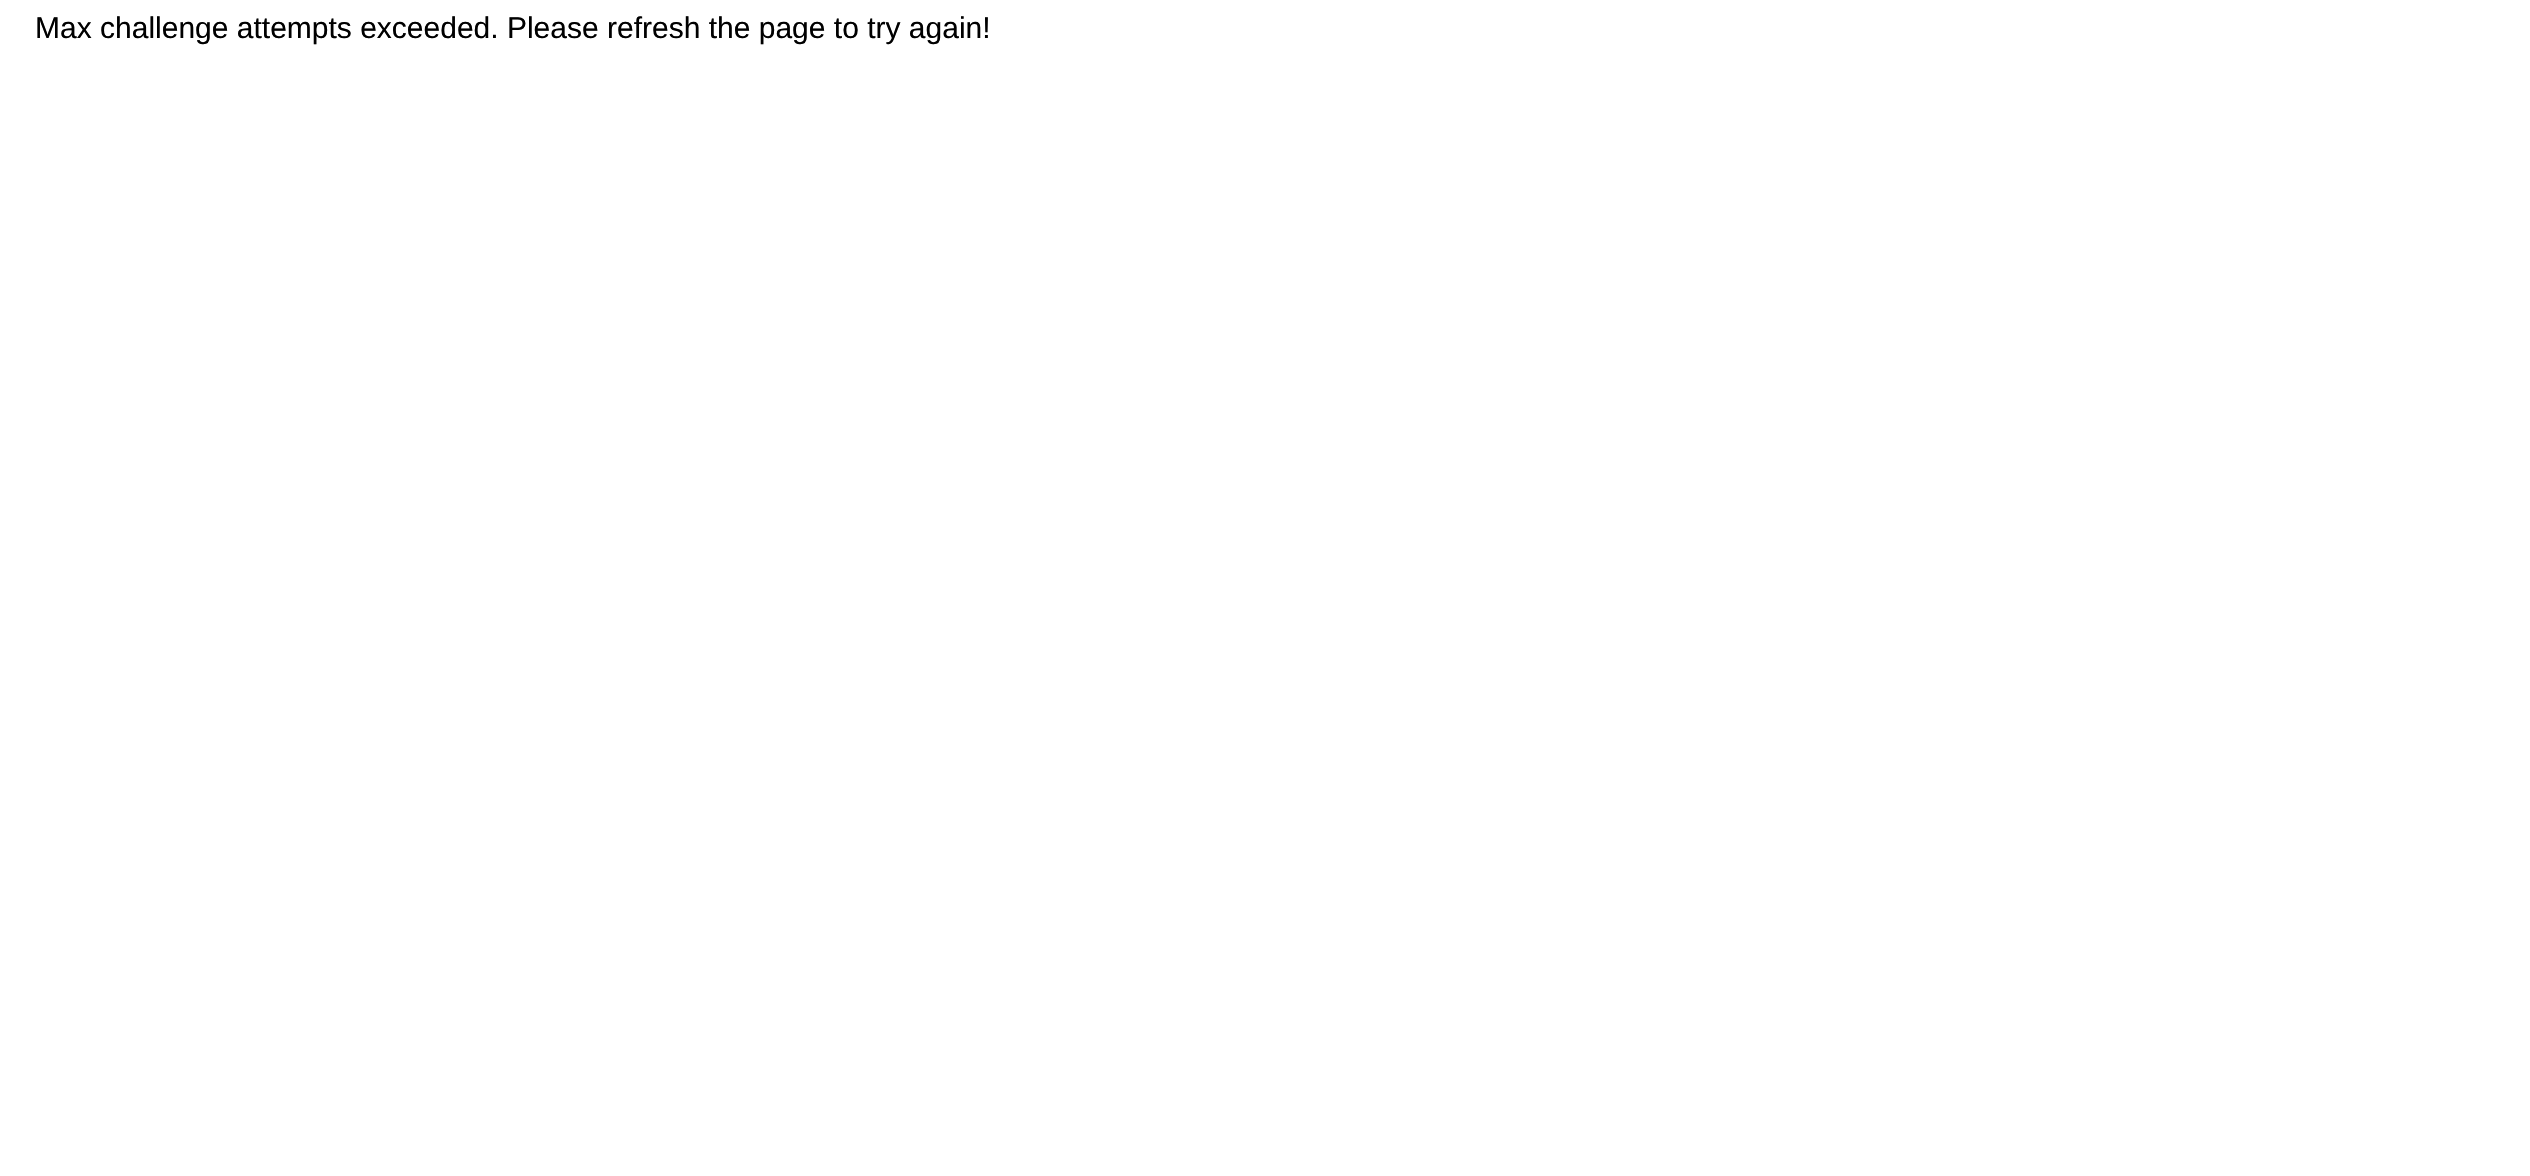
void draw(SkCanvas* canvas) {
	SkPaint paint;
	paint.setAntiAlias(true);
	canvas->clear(0xffffffff);
	SkFont f1(fontMgr->matchFamilyStyle("Liberation Sans", SkFontStyle::Normal()), 30);
	f1.setSubpixel(true);
	paint.setColor(0xff000000);
	canvas->drawString("Max challenge attempts exceeded. Please refresh the page to try again!", 35, 38, f1, paint);
}
